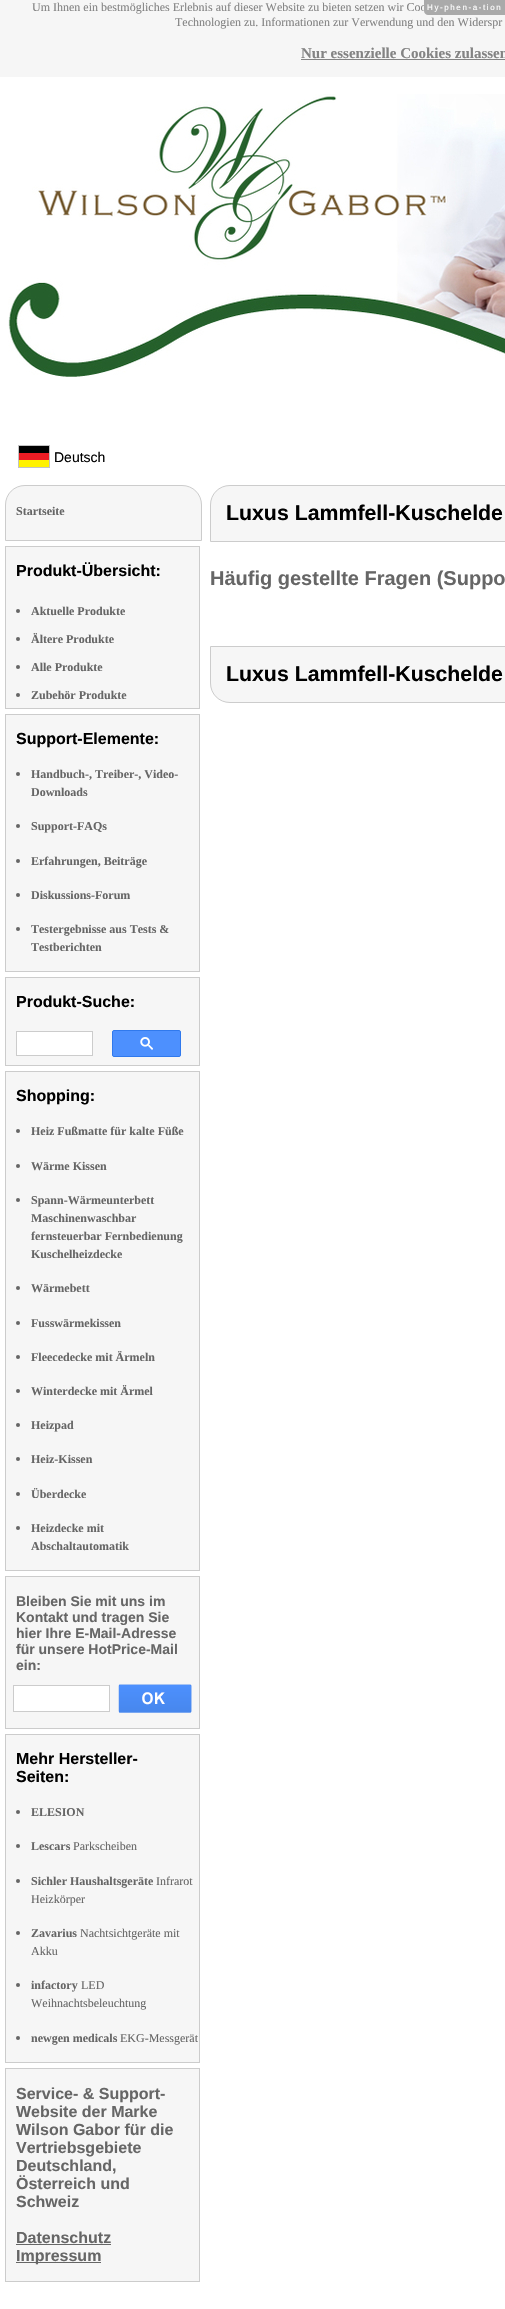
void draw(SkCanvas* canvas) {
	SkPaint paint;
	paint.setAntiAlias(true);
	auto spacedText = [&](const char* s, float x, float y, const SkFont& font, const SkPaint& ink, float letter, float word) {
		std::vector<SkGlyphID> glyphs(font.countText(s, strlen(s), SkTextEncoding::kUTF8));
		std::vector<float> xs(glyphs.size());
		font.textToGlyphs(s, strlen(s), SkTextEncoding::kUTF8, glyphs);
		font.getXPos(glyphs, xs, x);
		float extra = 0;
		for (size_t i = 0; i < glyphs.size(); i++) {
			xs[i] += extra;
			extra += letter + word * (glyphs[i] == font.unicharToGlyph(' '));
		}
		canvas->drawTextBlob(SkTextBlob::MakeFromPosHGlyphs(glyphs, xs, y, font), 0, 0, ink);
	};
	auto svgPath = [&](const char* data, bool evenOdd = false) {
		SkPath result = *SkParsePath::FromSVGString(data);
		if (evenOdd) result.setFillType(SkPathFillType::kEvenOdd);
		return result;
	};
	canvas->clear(0xffffffff);
	paint.setColor(0xfff6f6f6);
	canvas->drawRect(SkRect::MakeXYWH(0, 0, 505, 77), paint);
	SkFont f1(fontMgr->matchFamilyStyle("Liberation Serif", SkFontStyle::Normal()), 12);
	f1.setSubpixel(true);
	paint.setColor(0xff838383);
	canvas->drawString("Um Ihnen ein bestmögliches Erlebnis auf dieser Website zu bieten setzen wir Coo", 32, 11, f1, paint);
	canvas->drawString("Technologien zu. Informationen zur Verwendung und den Widerspr", 175, 26, f1, paint);
	SkFont f2(fontMgr->matchFamilyStyle("Liberation Serif", SkFontStyle::Bold()), 15);
	f2.setSubpixel(true);
	canvas->drawString("Nur essenzielle Cookies zulassen", 301, 58, f2, paint);
	canvas->drawRect(SkRect::MakeXYWH(301, 59, 204, 1), paint);
	canvas->drawImageRect(SkImages::DeferredFromEncodedData(SkData::MakeFromFileName("img1.png")), SkRect::MakeXYWH(8, 94, 497, 283), SkSamplingOptions());
	canvas->drawImageRect(SkImages::DeferredFromEncodedData(SkData::MakeFromFileName("img2.png")), SkRect::MakeXYWH(18, 445, 32, 23), SkSamplingOptions());
	SkFont f3(fontMgr->matchFamilyStyle("Liberation Sans", SkFontStyle::Normal()), 14);
	f3.setSubpixel(true);
	paint.setColor(0xff000000);
	canvas->drawString("Deutsch", 54, 462, f3, paint);
	paint.setColor(0xfff6f6f6);
	canvas->drawPath(svgPath("M25 485.5H182C193 485.5 201.5 494 201.5 505V540.5H5.5V505C5.5 494 14 485.5 25 485.5Z"), paint);
	paint.setStroke(true);
	paint.setStrokeWidth(1);
	paint.setColor(0xffcccccc);
	canvas->drawPath(svgPath("M25 485.5H182C193 485.5 201.5 494 201.5 505V540.5H5.5V505C5.5 494 14 485.5 25 485.5Z"), paint);
	SkFont f4(fontMgr->matchFamilyStyle("Liberation Serif", SkFontStyle::Bold()), 12);
	f4.setSubpixel(true);
	paint.setStroke(false);
	paint.setColor(0xff666666);
	canvas->drawString("Startseite", 16, 515, f4, paint);
	paint.setColor(0xfff6f6f6);
	canvas->drawRect(SkRect::MakeXYWH(5.5, 546.5, 194, 162), paint);
	paint.setStroke(true);
	paint.setColor(0xffcccccc);
	canvas->drawRect(SkRect::MakeXYWH(5.5, 546.5, 194, 162), paint);
	SkFont f5(fontMgr->matchFamilyStyle("Liberation Sans", SkFontStyle::Bold()), 16);
	f5.setSubpixel(true);
	paint.setStroke(false);
	paint.setColor(0xff000000);
	canvas->drawString("Produkt-Übersicht:", 16, 576, f5, paint);
	paint.setColor(0xff666666);
	canvas->drawCircle(18, 611, 2, paint);
	canvas->drawString("Aktuelle Produkte", 31, 615, f4, paint);
	canvas->drawCircle(18, 639, 2, paint);
	canvas->drawString("Ältere Produkte", 31, 643, f4, paint);
	canvas->drawCircle(18, 667, 2, paint);
	canvas->drawString("Alle Produkte", 31, 671, f4, paint);
	canvas->drawCircle(18, 695, 2, paint);
	canvas->drawString("Zubehör Produkte", 31, 699, f4, paint);
	paint.setColor(0xfff6f6f6);
	canvas->drawRect(SkRect::MakeXYWH(5.5, 714.5, 194, 257), paint);
	paint.setStroke(true);
	paint.setColor(0xffcccccc);
	canvas->drawRect(SkRect::MakeXYWH(5.5, 714.5, 194, 257), paint);
	paint.setStroke(false);
	paint.setColor(0xff000000);
	canvas->drawString("Support-Elemente:", 16, 744, f5, paint);
	paint.setColor(0xff666666);
	canvas->drawCircle(18, 774, 2, paint);
	canvas->drawString("Handbuch-, Treiber-, Video-", 31, 778, f4, paint);
	canvas->drawString("Downloads", 31, 796, f4, paint);
	canvas->drawCircle(18, 826, 2, paint);
	canvas->drawString("Support-FAQs", 31, 830, f4, paint);
	canvas->drawCircle(18, 861, 2, paint);
	canvas->drawString("Erfahrungen, Beiträge", 31, 865, f4, paint);
	canvas->drawCircle(18, 895, 2, paint);
	canvas->drawString("Diskussions-Forum", 31, 899, f4, paint);
	canvas->drawCircle(18, 929, 2, paint);
	canvas->drawString("Testergebnisse aus Tests &", 31, 933, f4, paint);
	canvas->drawString("Testberichten", 31, 951, f4, paint);
	paint.setColor(0xfff6f6f6);
	canvas->drawRect(SkRect::MakeXYWH(5.5, 977.5, 194, 88), paint);
	paint.setStroke(true);
	paint.setColor(0xffcccccc);
	canvas->drawRect(SkRect::MakeXYWH(5.5, 977.5, 194, 88), paint);
	paint.setStroke(false);
	paint.setColor(0xff000000);
	canvas->drawString("Produkt-Suche:", 16, 1007, f5, paint);
	paint.setColor(0xffffffff);
	canvas->drawRect(SkRect::MakeXYWH(16.5, 1031.5, 76, 24), paint);
	paint.setStroke(true);
	paint.setColor(0xffcccccc);
	canvas->drawRect(SkRect::MakeXYWH(16.5, 1031.5, 76, 24), paint);
	paint.setStroke(false);
	paint.setColor(0xff4d90fe);
	canvas->drawRoundRect(SkRect::MakeXYWH(112.5, 1030.5, 68, 26), 1.5, 1.5, paint);
	paint.setStroke(true);
	paint.setColor(0xff3079ed);
	canvas->drawRoundRect(SkRect::MakeXYWH(112.5, 1030.5, 68, 26), 1.5, 1.5, paint);
	canvas->drawImageRect(SkImages::DeferredFromEncodedData(SkData::MakeFromFileName("img3.png")), SkRect::MakeXYWH(140, 1037, 13, 13), SkSamplingOptions());
	paint.setStroke(false);
	paint.setColor(0xfff6f6f6);
	canvas->drawRect(SkRect::MakeXYWH(5.5, 1071.5, 194, 499), paint);
	paint.setStroke(true);
	paint.setColor(0xffcccccc);
	canvas->drawRect(SkRect::MakeXYWH(5.5, 1071.5, 194, 499), paint);
	paint.setStroke(false);
	paint.setColor(0xff000000);
	canvas->drawString("Shopping:", 16, 1101, f5, paint);
	paint.setColor(0xff666666);
	canvas->drawCircle(18, 1131, 2, paint);
	canvas->drawString("Heiz Fußmatte für kalte Füße", 31, 1135, f4, paint);
	canvas->drawCircle(18, 1166, 2, paint);
	canvas->drawString("Wärme Kissen", 31, 1170, f4, paint);
	canvas->drawCircle(18, 1200, 2, paint);
	canvas->drawString("Spann-Wärmeunterbett", 31, 1204, f4, paint);
	canvas->drawString("Maschinenwaschbar", 31, 1222, f4, paint);
	canvas->drawString("fernsteuerbar Fernbedienung", 31, 1240, f4, paint);
	canvas->drawString("Kuschelheizdecke", 31, 1258, f4, paint);
	canvas->drawCircle(18, 1288, 2, paint);
	canvas->drawString("Wärmebett", 31, 1292, f4, paint);
	canvas->drawCircle(18, 1323, 2, paint);
	canvas->drawString("Fusswärmekissen", 31, 1327, f4, paint);
	canvas->drawCircle(18, 1357, 2, paint);
	canvas->drawString("Fleecedecke mit Ärmeln", 31, 1361, f4, paint);
	canvas->drawCircle(18, 1391, 2, paint);
	canvas->drawString("Winterdecke mit Ärmel", 31, 1395, f4, paint);
	canvas->drawCircle(18, 1425, 2, paint);
	canvas->drawString("Heizpad", 31, 1429, f4, paint);
	canvas->drawCircle(18, 1459, 2, paint);
	canvas->drawString("Heiz-Kissen", 31, 1463, f4, paint);
	canvas->drawCircle(18, 1494, 2, paint);
	canvas->drawString("Überdecke", 31, 1498, f4, paint);
	canvas->drawCircle(18, 1528, 2, paint);
	canvas->drawString("Heizdecke mit", 31, 1532, f4, paint);
	canvas->drawString("Abschaltautomatik", 31, 1550, f4, paint);
	paint.setColor(0xfff6f6f6);
	canvas->drawRect(SkRect::MakeXYWH(5.5, 1576.5, 194, 152), paint);
	paint.setStroke(true);
	paint.setColor(0xffcccccc);
	canvas->drawRect(SkRect::MakeXYWH(5.5, 1576.5, 194, 152), paint);
	SkFont f6(fontMgr->matchFamilyStyle("Liberation Sans", SkFontStyle::Bold()), 14);
	f6.setSubpixel(true);
	paint.setStroke(false);
	paint.setColor(0xff666666);
	canvas->drawString("Bleiben Sie mit uns im", 16, 1606, f6, paint);
	canvas->drawString("Kontakt und tragen Sie", 16, 1622, f6, paint);
	canvas->drawString("hier Ihre E-Mail-Adresse", 16, 1638, f6, paint);
	canvas->drawString("für unsere HotPrice-Mail", 16, 1654, f6, paint);
	canvas->drawString("ein:", 16, 1670, f6, paint);
	paint.setColor(0xffffffff);
	canvas->drawRect(SkRect::MakeXYWH(13.5, 1685.5, 96, 26), paint);
	paint.setStroke(true);
	paint.setColor(0xffcccccc);
	canvas->drawRect(SkRect::MakeXYWH(13.5, 1685.5, 96, 26), paint);
	canvas->drawImageRect(SkImages::DeferredFromEncodedData(SkData::MakeFromFileName("img4.png")), SkRect::MakeXYWH(118, 1684, 74, 29), SkSamplingOptions());
	paint.setStroke(false);
	paint.setColor(0xfff6f6f6);
	canvas->drawRect(SkRect::MakeXYWH(5.5, 1734.5, 194, 328), paint);
	paint.setStroke(true);
	paint.setColor(0xffcccccc);
	canvas->drawRect(SkRect::MakeXYWH(5.5, 1734.5, 194, 328), paint);
	paint.setStroke(false);
	paint.setColor(0xff000000);
	canvas->drawString("Mehr Hersteller-", 16, 1764, f5, paint);
	canvas->drawString("Seiten:", 16, 1782, f5, paint);
	paint.setColor(0xff666666);
	canvas->drawCircle(18, 1812, 2, paint);
	canvas->drawString("ELESION", 31, 1816, f4, paint);
	canvas->drawCircle(18, 1846, 2, paint);
	canvas->drawString("Lescars", 31, 1850, f4, paint);
	canvas->drawString("Parkscheiben", 73, 1850, f1, paint);
	canvas->drawCircle(18, 1881, 2, paint);
	canvas->drawString("Sichler Haushaltsgeräte", 31, 1885, f4, paint);
	canvas->drawString("Infrarot", 156, 1885, f1, paint);
	canvas->drawString("Heizkörper", 31, 1903, f1, paint);
	canvas->drawCircle(18, 1933, 2, paint);
	canvas->drawString("Zavarius", 31, 1937, f4, paint);
	canvas->drawString("Nachtsichtgeräte mit", 80, 1937, f1, paint);
	canvas->drawString("Akku", 31, 1955, f1, paint);
	canvas->drawCircle(18, 1985, 2, paint);
	canvas->drawString("infactory", 31, 1989, f4, paint);
	canvas->drawString("LED", 81, 1989, f1, paint);
	canvas->drawString("Weihnachtsbeleuchtung", 31, 2007, f1, paint);
	canvas->drawCircle(18, 2038, 2, paint);
	canvas->drawString("newgen medicals", 31, 2042, f4, paint);
	canvas->drawString("EKG-Messgerät", 120, 2042, f1, paint);
	paint.setColor(0xfff6f6f6);
	canvas->drawRect(SkRect::MakeXYWH(5.5, 2068.5, 194, 213), paint);
	paint.setStroke(true);
	paint.setColor(0xffcccccc);
	canvas->drawRect(SkRect::MakeXYWH(5.5, 2068.5, 194, 213), paint);
	paint.setStroke(false);
	paint.setColor(0xff666666);
	canvas->drawString("Service- & Support-", 16, 2099, f5, paint);
	canvas->drawString("Website der Marke", 16, 2117, f5, paint);
	canvas->drawString("Wilson Gabor für die", 16, 2135, f5, paint);
	canvas->drawString("Vertriebsgebiete", 16, 2153, f5, paint);
	canvas->drawString("Deutschland,", 16, 2171, f5, paint);
	canvas->drawString("Österreich und", 16, 2189, f5, paint);
	canvas->drawString("Schweiz", 16, 2207, f5, paint);
	canvas->drawString("Datenschutz", 16, 2243, f5, paint);
	canvas->drawRect(SkRect::MakeXYWH(16, 2244, 95, 1), paint);
	canvas->drawRect(SkRect::MakeXYWH(16, 2262, 85, 1), paint);
	canvas->drawString("Impressum", 16, 2261, f5, paint);
	paint.setColor(0xfff6f6f6);
	canvas->drawPath(svgPath("M230 485.5H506C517 485.5 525.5 494 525.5 505V541.5H210.5V505C210.5 494 219 485.5 230 485.5Z"), paint);
	paint.setStroke(true);
	paint.setColor(0xffcccccc);
	canvas->drawPath(svgPath("M230 485.5H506C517 485.5 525.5 494 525.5 505V541.5H210.5V505C210.5 494 219 485.5 230 485.5Z"), paint);
	SkFont f7(fontMgr->matchFamilyStyle("Liberation Sans", SkFontStyle::Bold()), 21.3);
	f7.setSubpixel(true);
	paint.setStroke(false);
	paint.setColor(0xff000000);
	canvas->drawString("Luxus Lammfell-Kuschelde", 226, 520, f7, paint);
	SkFont f8(fontMgr->matchFamilyStyle("Liberation Sans", SkFontStyle::Bold()), 20);
	f8.setSubpixel(true);
	paint.setColor(0xff666666);
	canvas->drawString("Häufig gestellte Fragen (Suppo", 210, 585, f8, paint);
	paint.setColor(0xfff6f6f6);
	canvas->drawPath(svgPath("M210.5 646.5H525.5V683C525.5 694 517 702.5 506 702.5H230C219 702.5 210.5 694 210.5 683Z"), paint);
	paint.setStroke(true);
	paint.setColor(0xffcccccc);
	canvas->drawPath(svgPath("M210.5 646.5H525.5V683C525.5 694 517 702.5 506 702.5H230C219 702.5 210.5 694 210.5 683Z"), paint);
	paint.setStroke(false);
	paint.setColor(0xff000000);
	canvas->drawString("Luxus Lammfell-Kuschelde", 226, 681, f7, paint);
	paint.setColor(0xffaaaaaa);
	canvas->drawPath(svgPath("M424 0H505V15H428C426 15 424 13 424 11Z"), paint);
	SkFont f9(fontMgr->matchFamilyStyle("Liberation Sans", SkFontStyle::Normal()), 8);
	f9.setSubpixel(true);
	paint.setColor(0xffffffff);
	spacedText("Hy-phen-a-tion", 427, 10, f9, paint, 1.6, 0);
}
